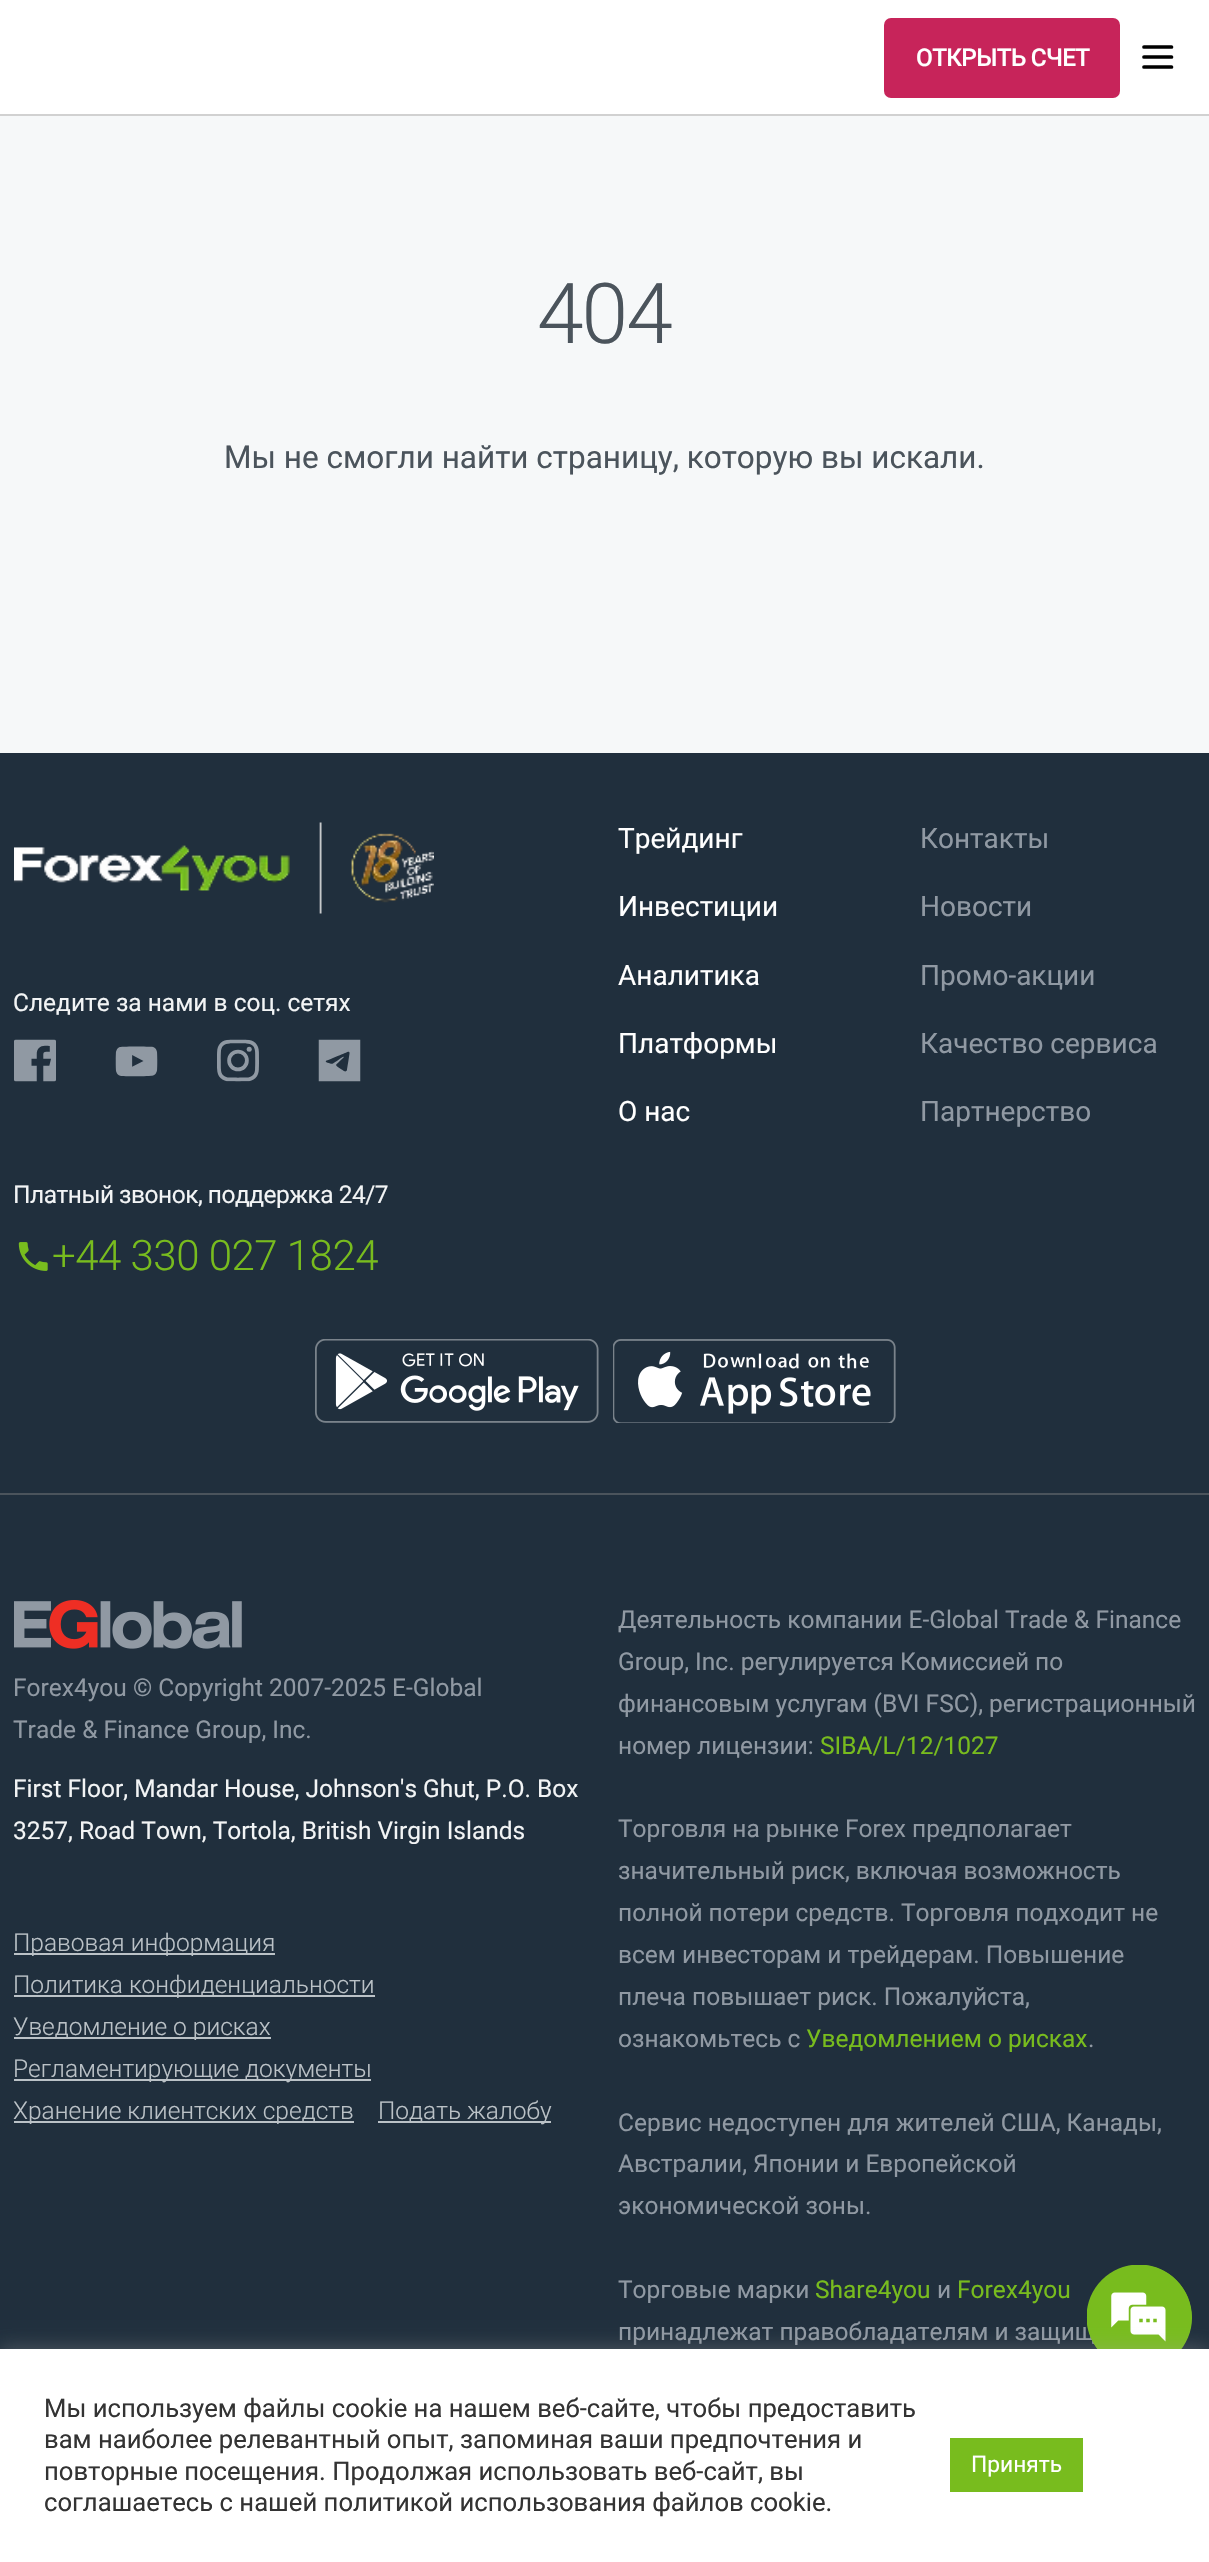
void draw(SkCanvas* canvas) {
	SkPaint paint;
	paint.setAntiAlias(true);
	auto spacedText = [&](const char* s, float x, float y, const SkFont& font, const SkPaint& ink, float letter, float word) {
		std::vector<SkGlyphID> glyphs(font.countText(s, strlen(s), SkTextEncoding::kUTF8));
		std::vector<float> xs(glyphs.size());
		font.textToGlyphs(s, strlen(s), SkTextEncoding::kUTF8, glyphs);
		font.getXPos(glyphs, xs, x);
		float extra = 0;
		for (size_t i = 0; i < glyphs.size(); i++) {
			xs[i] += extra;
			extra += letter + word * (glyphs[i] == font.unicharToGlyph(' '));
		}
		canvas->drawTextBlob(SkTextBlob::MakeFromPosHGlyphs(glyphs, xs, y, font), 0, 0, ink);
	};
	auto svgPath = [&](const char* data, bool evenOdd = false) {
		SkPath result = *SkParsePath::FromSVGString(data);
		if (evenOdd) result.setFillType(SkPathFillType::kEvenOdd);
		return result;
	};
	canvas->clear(0xffffffff);
	paint.setColor(0xffd1d1d1);
	canvas->drawRect(SkRect::MakeXYWH(0, 114, 1209, 2), paint);
	paint.setColor(0xffc7245a);
	canvas->drawRoundRect(SkRect::MakeXYWH(884, 18, 236, 80), 7, 7, paint);
	SkFont f1(fontMgr->matchFamilyStyle("Roboto", SkFontStyle(500, SkFontStyle::kNormal_Width, SkFontStyle::kUpright_Slant)), 24.5);
	f1.setSubpixel(true);
	paint.setColor(0xffffffff);
	spacedText("ОТКРЫТЬ СЧЕТ", 916, 66, f1, paint, -0.75, 0);
	paint.setStroke(true);
	paint.setStrokeWidth(3.7);
	paint.setStrokeCap(SkPaint::kRound_Cap);
	paint.setColor(0xff000000);
	canvas->drawPath(svgPath("M1144 47H1171.5M1144 57H1171.5M1144 67H1171.5"), paint);
	paint.setStroke(false);
	paint.setColor(0xfff6f8f9);
	canvas->drawRect(SkRect::MakeXYWH(0, 116, 1209, 637), paint);
	SkFont f2(fontMgr->matchFamilyStyle("Roboto", SkFontStyle(300, SkFontStyle::kNormal_Width, SkFontStyle::kUpright_Slant)), 84);
	f2.setSubpixel(true);
	paint.setColor(0xff4b545c);
	spacedText("404", 537, 343, f2, paint, -2, 0);
	SkFont f3(fontMgr->matchFamilyStyle("Roboto", SkFontStyle::Normal()), 31.5);
	f3.setSubpixel(true);
	canvas->drawString("Мы не смогли найти страницу, которую вы искали.", 224, 468, f3, paint);
	paint.setColor(0xff202f3d);
	canvas->drawRect(SkRect::MakeXYWH(0, 753, 1209, 1596), paint);
	canvas->drawImageRect(SkImages::DeferredFromEncodedData(SkData::MakeFromFileName("img1.png")), SkRect::MakeXYWH(14, 822, 420, 92), SkSamplingOptions());
	SkFont f4(fontMgr->matchFamilyStyle("Roboto", SkFontStyle::Normal()), 24.5);
	f4.setSubpixel(true);
	paint.setColor(0xfff2f4f5);
	canvas->drawString("Следите за нами в соц. сетях", 13, 1011, f4, paint);
	canvas->drawImageRect(SkImages::DeferredFromEncodedData(SkData::MakeFromFileName("img2.png")), SkRect::MakeXYWH(14, 1039, 42, 43), SkSamplingOptions());
	canvas->drawImageRect(SkImages::DeferredFromEncodedData(SkData::MakeFromFileName("img3.png")), SkRect::MakeXYWH(115, 1046, 43, 31), SkSamplingOptions());
	canvas->drawImageRect(SkImages::DeferredFromEncodedData(SkData::MakeFromFileName("img4.png")), SkRect::MakeXYWH(217, 1039, 42, 43), SkSamplingOptions());
	canvas->drawImageRect(SkImages::DeferredFromEncodedData(SkData::MakeFromFileName("img5.png")), SkRect::MakeXYWH(318, 1039, 43, 43), SkSamplingOptions());
	spacedText("Платный звонок, поддержка 24/7", 13, 1203, f4, paint, -0.5, 0);
	canvas->drawImageRect(SkImages::DeferredFromEncodedData(SkData::MakeFromFileName("img6.png")), SkRect::MakeXYWH(18, 1242, 30, 29), SkSamplingOptions());
	SkFont f5(fontMgr->matchFamilyStyle("Roboto", SkFontStyle(300, SkFontStyle::kNormal_Width, SkFontStyle::kUpright_Slant)), 42);
	f5.setSubpixel(true);
	paint.setColor(0xff78bc1e);
	spacedText("+44 330 027 1824", 52, 1270, f5, paint, -0.5, 0);
	SkFont f6(fontMgr->matchFamilyStyle("Roboto", SkFontStyle::Normal()), 28);
	f6.setSubpixel(true);
	paint.setColor(0xffffffff);
	canvas->drawString("Трейдинг", 618, 848, f6, paint);
	canvas->drawString("Инвестиции", 618, 916, f6, paint);
	canvas->drawString("Аналитика", 618, 985, f6, paint);
	canvas->drawString("Платформы", 618, 1053, f6, paint);
	canvas->drawString("О нас", 618, 1121, f6, paint);
	paint.setColor(0xff9099a3);
	canvas->drawString("Контакты", 920, 848, f6, paint);
	canvas->drawString("Новости", 920, 916, f6, paint);
	canvas->drawString("Промо-акции", 920, 985, f6, paint);
	canvas->drawString("Качество сервиса", 920, 1053, f6, paint);
	canvas->drawString("Партнерство", 920, 1121, f6, paint);
	canvas->drawImageRect(SkImages::DeferredFromEncodedData(SkData::MakeFromFileName("img7.png")), SkRect::MakeXYWH(315, 1339, 284, 84), SkSamplingOptions());
	canvas->drawImageRect(SkImages::DeferredFromEncodedData(SkData::MakeFromFileName("img8.png")), SkRect::MakeXYWH(613, 1339, 283, 84), SkSamplingOptions());
	paint.setColor(0xff4b545c);
	canvas->drawRect(SkRect::MakeXYWH(0, 1493, 1209, 2), paint);
	canvas->drawImageRect(SkImages::DeferredFromEncodedData(SkData::MakeFromFileName("img9.png")), SkRect::MakeXYWH(14, 1600, 228, 49), SkSamplingOptions());
	paint.setColor(0xff9099a3);
	canvas->drawString("Forex4you © Copyright 2007-2025 E-Global", 13, 1696, f4, paint);
	canvas->drawString("Trade & Finance Group, Inc.", 13, 1738, f4, paint);
	paint.setColor(0xfff2f4f5);
	canvas->drawString("First Floor, Mandar House, Johnson's Ghut, P.O. Box", 13, 1797, f4, paint);
	canvas->drawString("3257, Road Town, Tortola, British Virgin Islands", 13, 1839, f4, paint);
	paint.setColor(0xffbbc2c7);
	canvas->drawRect(SkRect::MakeXYWH(14, 1953, 261, 2), paint);
	SkFont f7(fontMgr->matchFamilyStyle("Roboto", SkFontStyle(300, SkFontStyle::kNormal_Width, SkFontStyle::kUpright_Slant)), 24.5);
	f7.setSubpixel(true);
	canvas->drawString("Правовая информация", 13, 1951, f7, paint);
	canvas->drawRect(SkRect::MakeXYWH(14, 1995, 361, 2), paint);
	canvas->drawString("Политика конфиденциальности", 13, 1993, f7, paint);
	canvas->drawRect(SkRect::MakeXYWH(14, 2037, 257, 2), paint);
	canvas->drawString("Уведомление о рисках", 13, 2035, f7, paint);
	canvas->drawRect(SkRect::MakeXYWH(14, 2079, 357, 2), paint);
	canvas->drawString("Регламентирующие документы", 13, 2077, f7, paint);
	canvas->drawRect(SkRect::MakeXYWH(14, 2121, 340, 2), paint);
	canvas->drawString("Хранение клиентских средств", 13, 2119, f7, paint);
	canvas->drawRect(SkRect::MakeXYWH(378, 2121, 173, 2), paint);
	canvas->drawString("Подать жалобу", 378, 2119, f7, paint);
	paint.setColor(0xff9099a3);
	canvas->drawString("Деятельность компании E-Global Trade & Finance", 618, 1628, f4, paint);
	canvas->drawString("Group, Inc. регулируется Комиссией по", 618, 1670, f4, paint);
	canvas->drawString("финансовым услугам (BVI FSC), регистрационный", 618, 1712, f4, paint);
	canvas->drawString("номер лицензии:", 618, 1754, f4, paint);
	paint.setColor(0xff78bc1e);
	canvas->drawString("SIBA/L/12/1027", 820, 1754, f4, paint);
	paint.setColor(0xff9099a3);
	canvas->drawString("Торговля на рынке Forex предполагает", 618, 1837, f4, paint);
	canvas->drawString("значительный риск, включая возможность", 618, 1879, f4, paint);
	canvas->drawString("полной потери средств. Торговля подходит не", 618, 1921, f4, paint);
	canvas->drawString("всем инвесторам и трейдерам. Повышение", 618, 1963, f4, paint);
	canvas->drawString("плеча повышает риск. Пожалуйста,", 618, 2005, f4, paint);
	canvas->drawString("ознакомьтесь с", 618, 2047, f4, paint);
	paint.setColor(0xff78bc1e);
	canvas->drawString("Уведомлением о рисках", 806, 2047, f4, paint);
	paint.setColor(0xff9099a3);
	canvas->drawString(".", 1088, 2047, f4, paint);
	canvas->drawString("Сервис недоступен для жителей США, Канады,", 618, 2131, f4, paint);
	canvas->drawString("Австралии, Японии и Европейской", 618, 2172, f4, paint);
	canvas->drawString("экономической зоны.", 618, 2214, f4, paint);
	canvas->drawString("Торговые марки", 618, 2298, f4, paint);
	paint.setColor(0xff78bc1e);
	canvas->drawString("Share4you", 815, 2298, f4, paint);
	paint.setColor(0xff9099a3);
	canvas->drawString("и", 937, 2298, f4, paint);
	paint.setColor(0xff78bc1e);
	canvas->drawString("Forex4you", 957, 2298, f4, paint);
	paint.setColor(0xff9099a3);
	canvas->drawString("принадлежат правобладателям и защищ", 618, 2340, f4, paint);
	paint.setColor(0xff78bc1e);
	canvas->drawCircle(1139.5, 2317.5, 52.5, paint);
	canvas->drawImageRect(SkImages::DeferredFromEncodedData(SkData::MakeFromFileName("img10.png")), SkRect::MakeXYWH(1087, 2265, 105, 84), SkSamplingOptions());
	paint.setColor(0x4dacabab);
	paint.setMaskFilter(SkMaskFilter::MakeBlur(kNormal_SkBlurStyle, 9));
	canvas->drawRect(SkRect::MakeXYWH(0, 2347, 1209, 213), paint);
	paint.setMaskFilter(nullptr);
	paint.setColor(0xffffffff);
	canvas->drawRect(SkRect::MakeXYWH(0, 2349, 1209, 213), paint);
	SkFont f8(fontMgr->matchFamilyStyle("Roboto", SkFontStyle::Normal()), 25.65);
	f8.setSubpixel(true);
	paint.setColor(0xff333333);
	canvas->drawString("Мы используем файлы cookie на нашем веб-сайте, чтобы предоставить", 44, 2417, f8, paint);
	canvas->drawString("вам наиболее релевантный опыт, запоминая ваши предпочтения и", 44, 2448, f8, paint);
	canvas->drawString("повторные посещения. Продолжая использовать веб-сайт, вы", 44, 2480, f8, paint);
	canvas->drawString("соглашаетесь с нашей политикой использования файлов cookie.", 44, 2511, f8, paint);
	paint.setColor(0xff78bc1e);
	canvas->drawRect(SkRect::MakeXYWH(950, 2438, 133, 54), paint);
	SkFont f9(fontMgr->matchFamilyStyle("Roboto", SkFontStyle::Normal()), 22.75);
	f9.setSubpixel(true);
	paint.setColor(0xffffffff);
	canvas->drawString("Принять", 971, 2472, f9, paint);
}
